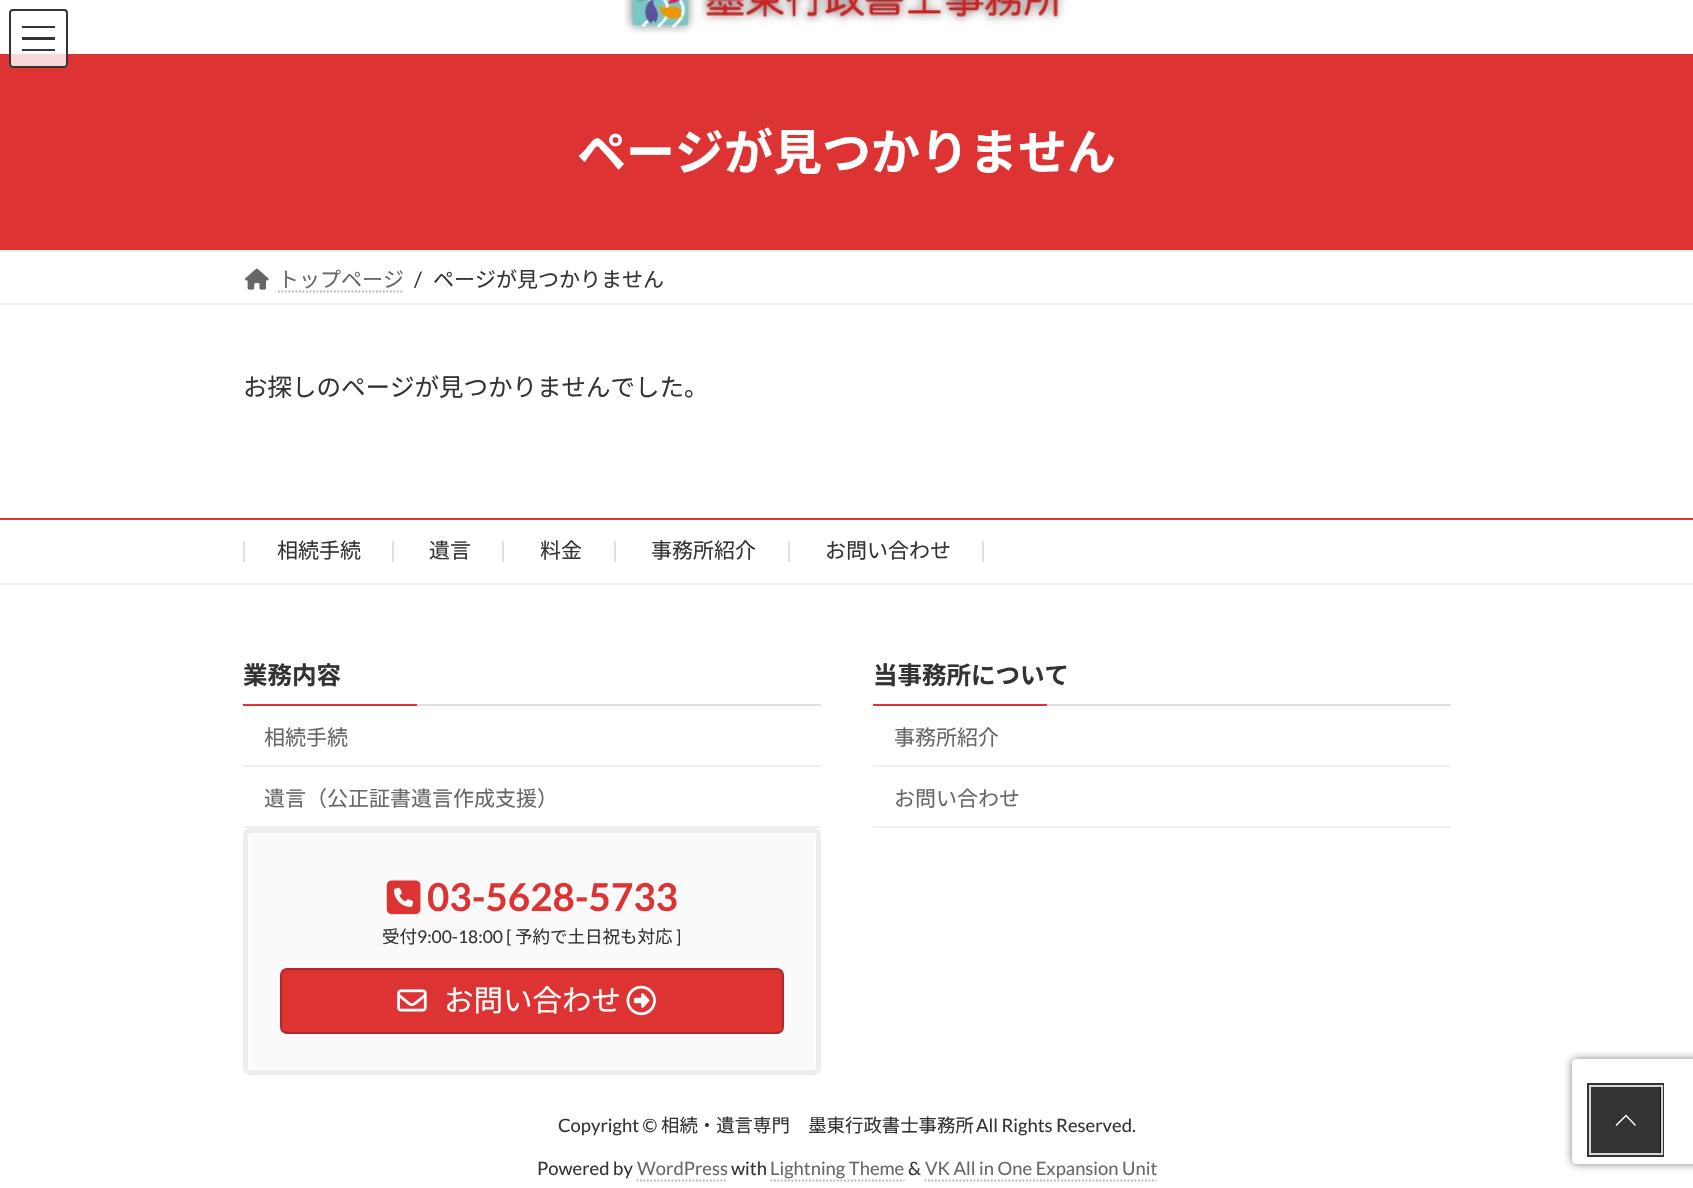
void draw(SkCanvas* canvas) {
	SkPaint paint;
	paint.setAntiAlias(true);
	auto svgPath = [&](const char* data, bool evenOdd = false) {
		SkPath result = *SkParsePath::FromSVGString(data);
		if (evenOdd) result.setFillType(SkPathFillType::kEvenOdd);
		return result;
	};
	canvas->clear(0xffffffff);
	paint.setColor(0xffdd3333);
	canvas->drawRect(SkRect::MakeXYWH(0, 54, 1693, 196), paint);
	paint.setColor(0xccffffff);
	canvas->drawRoundRect(SkRect::MakeXYWH(9, 9, 59, 59), 4, 4, paint);
	paint.setColor(0xff333333);
	canvas->drawRect(SkRect::MakeXYWH(22, 26, 33, 2), paint);
	canvas->drawRect(SkRect::MakeXYWH(22, 37, 33, 3), paint);
	canvas->drawRect(SkRect::MakeXYWH(22, 49, 33, 2), paint);
	paint.setStroke(true);
	paint.setStrokeWidth(2);
	canvas->drawRoundRect(SkRect::MakeXYWH(10, 10, 57, 57), 3, 3, paint);
	canvas->drawImageRect(SkImages::DeferredFromEncodedData(SkData::MakeFromFileName("img1.png")), SkRect::MakeXYWH(624, 0, 443, 34), SkSamplingOptions());
	SkFont f1(fontMgr->matchFamilyStyle("Noto Sans JP", SkFontStyle::Bold()), 49);
	f1.setSubpixel(true);
	paint.setStroke(false);
	paint.setColor(0xffffffff);
	canvas->drawString("ページが見つかりません", 577, 170, f1, paint);
	paint.setColor(0xfff0f0f0);
	canvas->drawRect(SkRect::MakeXYWH(0, 250, 1693, 2), paint);
	canvas->drawRect(SkRect::MakeXYWH(0, 303, 1693, 2), paint);
	canvas->drawImageRect(SkImages::DeferredFromEncodedData(SkData::MakeFromFileName("img2.png")), SkRect::MakeXYWH(245, 268, 24, 22), SkSamplingOptions());
	SkFont f2(fontMgr->matchFamilyStyle("Noto Sans JP", SkFontStyle::Normal()), 21);
	f2.setSubpixel(true);
	paint.setColor(0xff666666);
	canvas->drawString("トップページ", 278, 287, f2, paint);
	paint.setStroke(true);
	paint.setStrokeWidth(1.8);
	paint.setColor(0xffb3b3b3);
	paint.setPathEffect(SkDashPathEffect::Make({{1.75f, 1.75f}}, 0));
	canvas->drawPath(svgPath("M278 291.5H404"), paint);
	paint.setPathEffect(nullptr);
	SkFont f3(fontMgr->matchFamilyStyle("Lato", SkFontStyle::Normal()), 21);
	f3.setSubpixel(true);
	paint.setStroke(false);
	paint.setColor(0xff333333);
	canvas->drawString("/", 414, 287, f3, paint);
	canvas->drawString("ページが見つかりません", 433, 287, f2, paint);
	SkFont f4(fontMgr->matchFamilyStyle("Noto Sans JP", SkFontStyle::Normal()), 24.5);
	f4.setSubpixel(true);
	canvas->drawString("お探しのページが見つかりませんでした。", 243, 396, f4, paint);
	paint.setColor(0xffdd3333);
	canvas->drawRect(SkRect::MakeXYWH(0, 518, 1693, 2), paint);
	paint.setColor(0xfff0f0f0);
	canvas->drawRect(SkRect::MakeXYWH(0, 583, 1693, 2), paint);
	paint.setColor(0xffe0e0e0);
	canvas->drawRect(SkRect::MakeXYWH(392, 541, 2, 21), paint);
	canvas->drawRect(SkRect::MakeXYWH(243, 541, 2, 21), paint);
	paint.setColor(0xff333333);
	canvas->drawString("相続手続", 277, 558, f2, paint);
	paint.setColor(0xffe0e0e0);
	canvas->drawRect(SkRect::MakeXYWH(502, 541, 2, 21), paint);
	paint.setColor(0xff333333);
	canvas->drawString("遺言", 429, 558, f2, paint);
	paint.setColor(0xffe0e0e0);
	canvas->drawRect(SkRect::MakeXYWH(614, 541, 2, 21), paint);
	paint.setColor(0xff333333);
	canvas->drawString("料金", 540, 558, f2, paint);
	paint.setColor(0xffe0e0e0);
	canvas->drawRect(SkRect::MakeXYWH(788, 541, 2, 21), paint);
	paint.setColor(0xff333333);
	canvas->drawString("事務所紹介", 651, 558, f2, paint);
	paint.setColor(0xffe0e0e0);
	canvas->drawRect(SkRect::MakeXYWH(982, 541, 2, 21), paint);
	paint.setColor(0xff333333);
	canvas->drawString("お問い合わせ", 825, 558, f2, paint);
	paint.setColor(0xffe0e0e0);
	canvas->drawRect(SkRect::MakeXYWH(417, 704, 404, 2), paint);
	SkFont f5(fontMgr->matchFamilyStyle("Noto Sans JP", SkFontStyle::Bold()), 24.5);
	f5.setSubpixel(true);
	paint.setColor(0xff333333);
	canvas->drawString("業務内容", 243, 684, f5, paint);
	paint.setColor(0xffdd3333);
	canvas->drawRect(SkRect::MakeXYWH(243, 704, 174, 2), paint);
	paint.setColor(0xfff0f0f0);
	canvas->drawRect(SkRect::MakeXYWH(243, 765, 578, 2), paint);
	paint.setColor(0xff666666);
	canvas->drawString("相続手続", 264, 745, f2, paint);
	paint.setColor(0xfff0f0f0);
	canvas->drawRect(SkRect::MakeXYWH(243, 826, 578, 2), paint);
	paint.setColor(0xff666666);
	canvas->drawString("遺言（公正証書遺言作成支援）", 264, 806, f2, paint);
	paint.setColor(0xffe0e0e0);
	canvas->drawRect(SkRect::MakeXYWH(1047, 704, 404, 2), paint);
	paint.setColor(0xff333333);
	canvas->drawString("当事務所について", 873, 684, f5, paint);
	paint.setColor(0xffdd3333);
	canvas->drawRect(SkRect::MakeXYWH(873, 704, 174, 2), paint);
	paint.setColor(0xfff0f0f0);
	canvas->drawRect(SkRect::MakeXYWH(873, 765, 578, 2), paint);
	paint.setColor(0xff666666);
	canvas->drawString("事務所紹介", 894, 745, f2, paint);
	paint.setColor(0xfff0f0f0);
	canvas->drawRect(SkRect::MakeXYWH(873, 826, 578, 2), paint);
	paint.setColor(0xff666666);
	canvas->drawString("お問い合わせ", 894, 806, f2, paint);
	paint.setStroke(true);
	paint.setStrokeWidth(5);
	paint.setColor(0xffededed);
	canvas->drawRoundRect(SkRect::MakeXYWH(245.5, 830.5, 573, 242), 4.5, 4.5, paint);
	paint.setStroke(false);
	paint.setColor(0xfffafafa);
	canvas->drawRoundRect(SkRect::MakeXYWH(249, 833, 567, 236), 2, 2, paint);
	paint.setColor(0xfffefefe);
	canvas->drawPath(svgPath("M251 833C250 833 249 834 249 835V1067C249 1068 250 1069 251 1069H814C815 1069 816 1068 816 1067V835C816 834 815 833 814 833ZM251 835V1067H814V835Z", true), paint);
	canvas->drawImageRect(SkImages::DeferredFromEncodedData(SkData::MakeFromFileName("img3.png")), SkRect::MakeXYWH(386, 880, 35, 35), SkSamplingOptions());
	SkFont f6(fontMgr->matchFamilyStyle("Lato", SkFontStyle::Bold()), 38.5);
	f6.setSubpixel(true);
	paint.setColor(0xffdd3333);
	canvas->drawString("03-5628-5733", 427, 911, f6, paint);
	SkFont f7(fontMgr->matchFamilyStyle("Noto Sans JP", SkFontStyle::Normal()), 17.5);
	f7.setSubpixel(true);
	paint.setColor(0xff333333);
	canvas->drawString("受付", 382, 943, f7, paint);
	SkFont f8(fontMgr->matchFamilyStyle("Lato", SkFontStyle::Normal()), 17.5);
	f8.setSubpixel(true);
	canvas->drawString("9:00-18:00 [", 417, 943, f8, paint);
	canvas->drawString("予約で土日祝も対応", 515, 943, f7, paint);
	canvas->drawString("]", 676, 943, f8, paint);
	paint.setColor(0xffdd3333);
	canvas->drawRoundRect(SkRect::MakeXYWH(281, 969, 502, 64), 6, 6, paint);
	paint.setStroke(true);
	paint.setStrokeWidth(2);
	paint.setColor(0xffb12929);
	canvas->drawRoundRect(SkRect::MakeXYWH(281, 969, 502, 64), 6, 6, paint);
	canvas->drawImageRect(SkImages::DeferredFromEncodedData(SkData::MakeFromFileName("img4.png")), SkRect::MakeXYWH(397, 989, 30, 23), SkSamplingOptions());
	SkFont f9(fontMgr->matchFamilyStyle("Noto Sans JP", SkFontStyle::Normal()), 29.5);
	f9.setSubpixel(true);
	paint.setStroke(false);
	paint.setColor(0xffffffff);
	canvas->drawString("お問い合わせ", 444, 1011, f9, paint);
	canvas->drawImageRect(SkImages::DeferredFromEncodedData(SkData::MakeFromFileName("img5.png")), SkRect::MakeXYWH(626, 985, 30, 31), SkSamplingOptions());
	SkFont f10(fontMgr->matchFamilyStyle("Lato", SkFontStyle::Normal()), 18.4);
	f10.setSubpixel(true);
	paint.setColor(0xff333333);
	canvas->drawString("Copyright ©", 558, 1132, f10, paint);
	SkFont f11(fontMgr->matchFamilyStyle("Noto Sans JP", SkFontStyle::Normal()), 18.4);
	f11.setSubpixel(true);
	canvas->drawString("相続・遺言専門　墨東行政書士事務所", 661, 1132, f11, paint);
	canvas->drawString("All Rights Reserved.", 976, 1132, f10, paint);
	canvas->drawString("Powered by", 537, 1175, f10, paint);
	paint.setColor(0xff666666);
	canvas->drawString("WordPress", 637, 1175, f10, paint);
	paint.setStroke(true);
	paint.setStrokeWidth(1.8);
	paint.setColor(0xffb3b3b3);
	paint.setPathEffect(SkDashPathEffect::Make({{1.75f, 1.75f}}, 0));
	canvas->drawPath(svgPath("M636.5 1180.5H727.5"), paint);
	paint.setPathEffect(nullptr);
	paint.setStroke(false);
	paint.setColor(0xff333333);
	canvas->drawString("with", 731, 1175, f10, paint);
	paint.setColor(0xff666666);
	canvas->drawString("Lightning Theme", 770, 1175, f10, paint);
	paint.setStroke(true);
	paint.setColor(0xffb3b3b3);
	paint.setPathEffect(SkDashPathEffect::Make({{1.75f, 1.75f}}, 0));
	canvas->drawPath(svgPath("M770.5 1180.5H904.5"), paint);
	paint.setPathEffect(nullptr);
	paint.setStroke(false);
	paint.setColor(0xff333333);
	canvas->drawString("&", 908, 1175, f10, paint);
	paint.setColor(0xff666666);
	canvas->drawString("VK All in One Expansion Unit", 925, 1175, f10, paint);
	paint.setStroke(true);
	paint.setColor(0xffb3b3b3);
	paint.setPathEffect(SkDashPathEffect::Make({{1.75f, 1.75f}}, 0));
	canvas->drawPath(svgPath("M924.5 1180.5H1156.5"), paint);
	paint.setPathEffect(nullptr);
	canvas->save();
	canvas->clipPath(svgPath("M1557 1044H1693V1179H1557ZM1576 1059H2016C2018 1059 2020 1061 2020 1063V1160C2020 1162 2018 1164 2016 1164H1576C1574 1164 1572 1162 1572 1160V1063C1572 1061 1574 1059 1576 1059Z", true), true);
	paint.setStroke(false);
	paint.setColor(0xff808080);
	paint.setMaskFilter(SkMaskFilter::MakeBlur(kNormal_SkBlurStyle, 4.5));
	canvas->drawRoundRect(SkRect::MakeXYWH(1572, 1059, 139, 105), 4, 4, paint);
	paint.setMaskFilter(nullptr);
	canvas->restore();
	paint.setStroke(true);
	paint.setStrokeWidth(4);
	paint.setColor(0xff333333);
	canvas->drawRect(SkRect::MakeXYWH(1589, 1085, 73, 70), paint);
	paint.setStrokeWidth(2);
	paint.setColor(0xffd6d6d6);
	canvas->drawRect(SkRect::MakeXYWH(1590, 1086, 72, 68), paint);
	paint.setStroke(false);
	paint.setColor(0xcc000000);
	canvas->drawRect(SkRect::MakeXYWH(1591, 1087, 70, 66), paint);
	paint.setColor(0xffffffff);
	canvas->drawPath(svgPath("M1636 1125L1635 1126L1626 1116.5L1616.5 1126L1615.5 1125L1626 1114.5Z"), paint);
}
